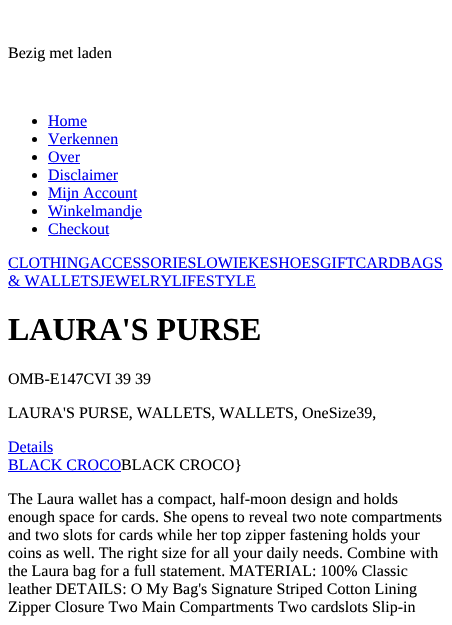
void draw(SkCanvas* canvas) {
	SkPaint paint;
	paint.setAntiAlias(true);
	canvas->clear(0xffffffff);
	SkFont f1(fontMgr->matchFamilyStyle("Liberation Serif", SkFontStyle::Normal()), 16);
	f1.setSubpixel(true);
	paint.setColor(0xff000000);
	canvas->drawString("Bezig met laden", 8, 58, f1, paint);
	canvas->drawCircle(34.5, 121.5, 2.5, paint);
	paint.setColor(0xff0000ee);
	canvas->drawString("Home", 48, 126, f1, paint);
	canvas->drawRect(SkRect::MakeXYWH(48, 127, 39, 1), paint);
	paint.setColor(0xff000000);
	canvas->drawCircle(34.5, 139.5, 2.5, paint);
	paint.setColor(0xff0000ee);
	canvas->drawString("Verkennen", 48, 144, f1, paint);
	canvas->drawRect(SkRect::MakeXYWH(48, 145, 70, 1), paint);
	paint.setColor(0xff000000);
	canvas->drawCircle(34.5, 157.5, 2.5, paint);
	paint.setColor(0xff0000ee);
	canvas->drawString("Over", 48, 162, f1, paint);
	canvas->drawRect(SkRect::MakeXYWH(48, 163, 32, 1), paint);
	paint.setColor(0xff000000);
	canvas->drawCircle(34.5, 175.5, 2.5, paint);
	paint.setColor(0xff0000ee);
	canvas->drawString("Disclaimer", 48, 180, f1, paint);
	canvas->drawRect(SkRect::MakeXYWH(48, 181, 70, 1), paint);
	paint.setColor(0xff000000);
	canvas->drawCircle(34.5, 193.5, 2.5, paint);
	paint.setColor(0xff0000ee);
	canvas->drawRect(SkRect::MakeXYWH(48, 199, 89, 1), paint);
	canvas->drawString("Mijn Account", 48, 198, f1, paint);
	paint.setColor(0xff000000);
	canvas->drawCircle(34.5, 211.5, 2.5, paint);
	paint.setColor(0xff0000ee);
	canvas->drawRect(SkRect::MakeXYWH(48, 217, 94, 1), paint);
	canvas->drawString("Winkelmandje", 48, 216, f1, paint);
	paint.setColor(0xff000000);
	canvas->drawCircle(34.5, 229.5, 2.5, paint);
	paint.setColor(0xff0000ee);
	canvas->drawString("Checkout", 48, 234, f1, paint);
	canvas->drawRect(SkRect::MakeXYWH(48, 235, 61, 1), paint);
	canvas->drawString("CLOTHINGACCESSORIESLOWIEKESHOESGIFTCARDBAGS", 8, 268, f1, paint);
	canvas->drawRect(SkRect::MakeXYWH(8, 269, 435, 1), paint);
	canvas->drawString("& WALLETSJEWELRYLIFESTYLE", 8, 286, f1, paint);
	canvas->drawRect(SkRect::MakeXYWH(8, 287, 248, 1), paint);
	SkFont f2(fontMgr->matchFamilyStyle("Liberation Serif", SkFontStyle::Bold()), 32);
	f2.setSubpixel(true);
	paint.setColor(0xff000000);
	canvas->drawString("LAURA'S PURSE", 8, 340, f2, paint);
	canvas->drawString("OMB-E147CVI 39 39", 8, 384, f1, paint);
	canvas->drawString("LAURA'S PURSE, WALLETS, WALLETS, OneSize39,", 8, 418, f1, paint);
	paint.setColor(0xff0000ee);
	canvas->drawString("Details", 8, 452, f1, paint);
	canvas->drawRect(SkRect::MakeXYWH(8, 453, 45, 1), paint);
	canvas->drawString("BLACK CROCO", 8, 470, f1, paint);
	canvas->drawRect(SkRect::MakeXYWH(8, 471, 113, 1), paint);
	paint.setColor(0xff000000);
	canvas->drawString("BLACK CROCO}", 121, 470, f1, paint);
	canvas->drawString("The Laura wallet has a compact, half-moon design and holds", 8, 504, f1, paint);
	canvas->drawString("enough space for cards. She opens to reveal two note compartments", 8, 522, f1, paint);
	canvas->drawString("and two slots for cards while her top zipper fastening holds your", 8, 540, f1, paint);
	canvas->drawString("coins as well. The right size for all your daily needs. Combine with", 8, 558, f1, paint);
	canvas->drawString("the Laura bag for a full statement. MATERIAL: 100% Classic", 8, 576, f1, paint);
	canvas->drawString("leather DETAILS: O My Bag's Signature Striped Cotton Lining", 8, 594, f1, paint);
	canvas->drawString("Zipper Closure Two Main Compartments Two cardslots Slip-in", 8, 612, f1, paint);
}
